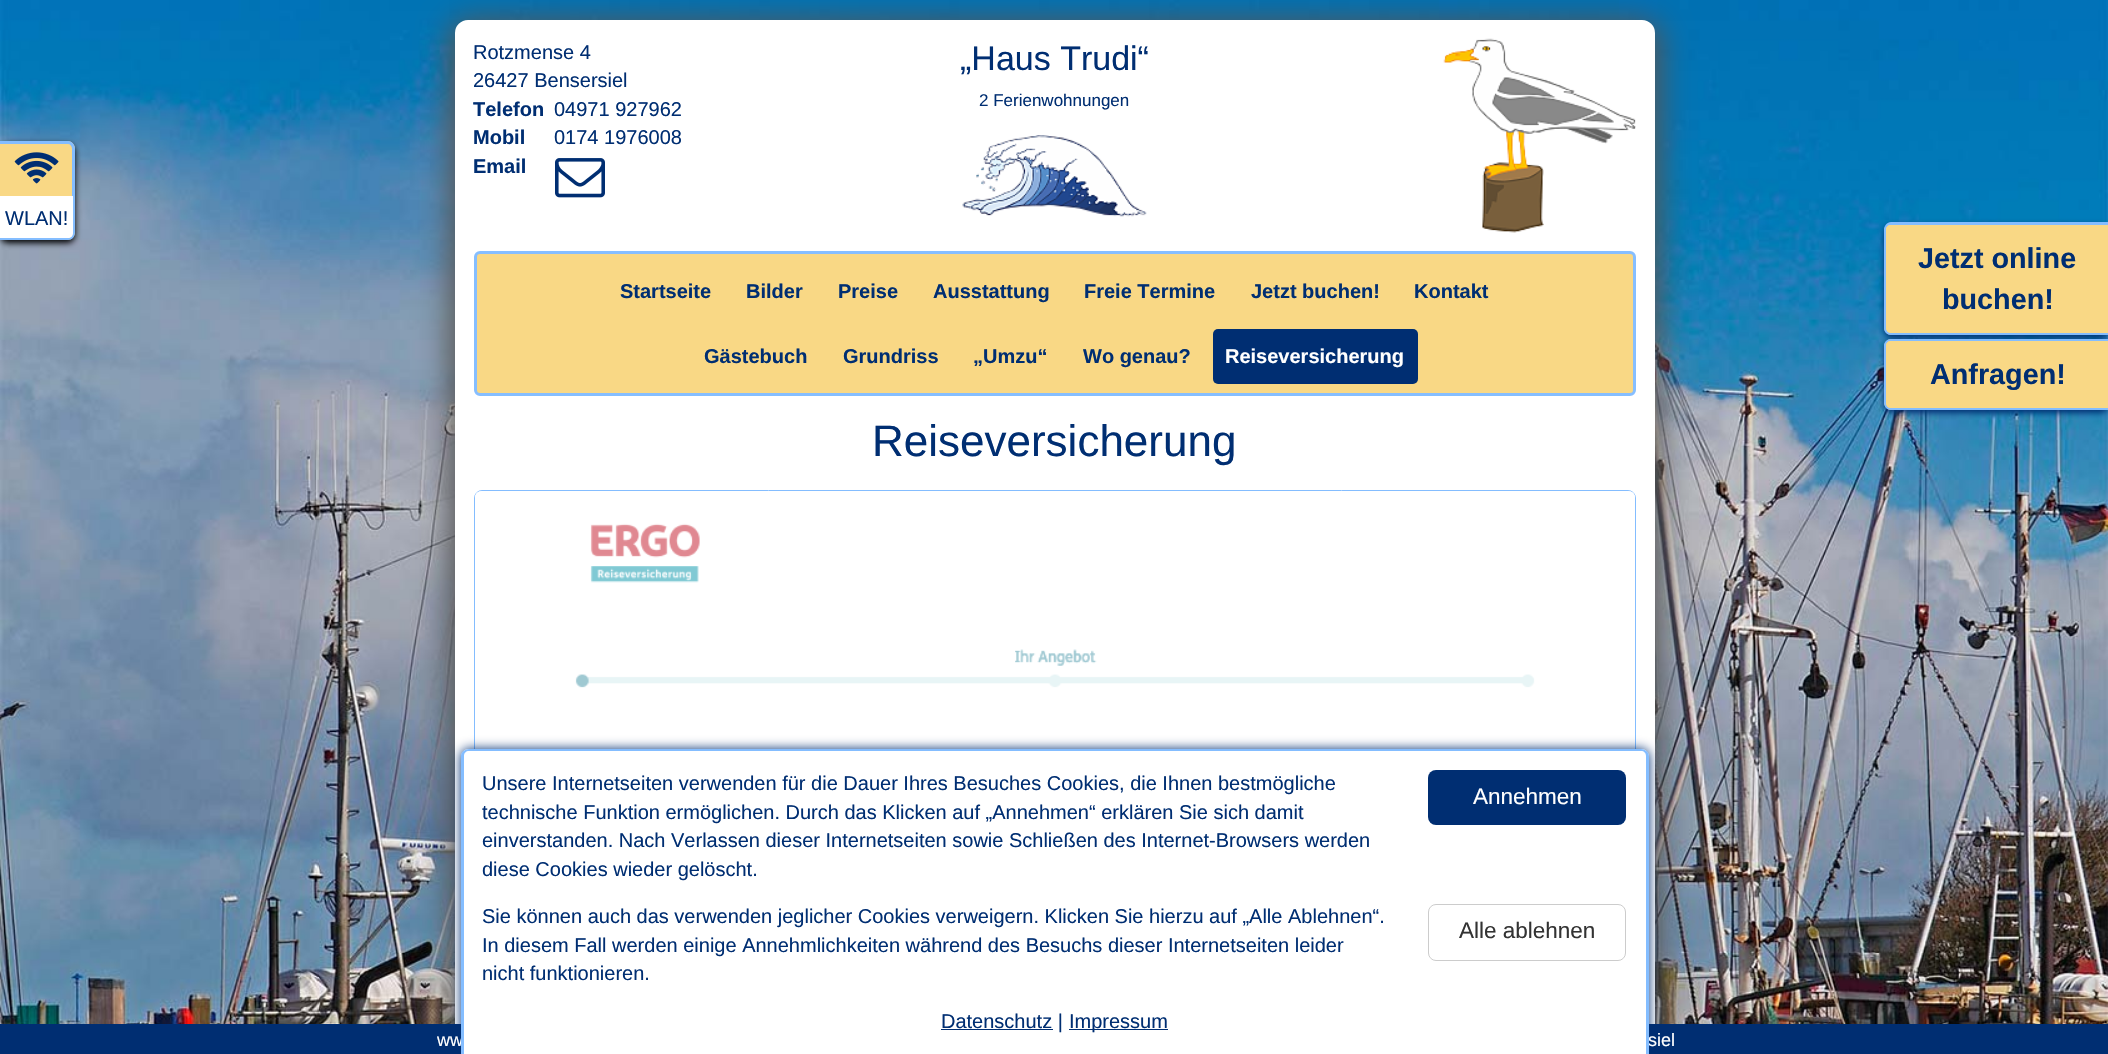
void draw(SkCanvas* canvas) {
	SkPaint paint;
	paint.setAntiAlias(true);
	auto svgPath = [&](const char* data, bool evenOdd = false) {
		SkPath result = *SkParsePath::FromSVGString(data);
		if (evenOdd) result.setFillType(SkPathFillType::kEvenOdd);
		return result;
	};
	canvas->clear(0xffffffff);
	canvas->drawImageRect(SkImages::DeferredFromEncodedData(SkData::MakeFromFileName("img1.png")), SkRect::MakeXYWH(0, 0, 2108, 1024), SkSamplingOptions());
	paint.setColor(0xff000000);
	paint.setMaskFilter(SkMaskFilter::MakeBlur(kNormal_SkBlurStyle, 3));
	canvas->drawRoundRect(SkRect::MakeXYWH(0, 144, 75, 99), 8, 8, paint);
	paint.setMaskFilter(nullptr);
	paint.setColor(0xfff9d885);
	canvas->drawPath(svgPath("M0 141H67C71.5 141 75 144.5 75 149V232C75 236.5 71.5 240 67 240H0Z"), paint);
	paint.setColor(0xff84bdff);
	canvas->drawPath(svgPath("M0 141H68C72 141 75 145 75 149V232C75 237 72 240 68 240H0ZM0 144H68C70 144 72 146 72 149V232C72 235 70 238 68 238H0Z", true), paint);
	canvas->drawImageRect(SkImages::DeferredFromEncodedData(SkData::MakeFromFileName("img2.png")), SkRect::MakeXYWH(14, 152, 45, 32), SkSamplingOptions());
	paint.setColor(0xffffffff);
	canvas->drawPath(svgPath("M0 196H73V233C73 236 71 238 68 238H0Z"), paint);
	SkFont f1(fontMgr->matchFamilyStyle("Liberation Sans", SkFontStyle::Normal()), 20);
	f1.setSubpixel(true);
	paint.setColor(0xff002e72);
	canvas->drawString("WLAN!", 5, 225, f1, paint);
	paint.setColor(0xff555555);
	paint.setMaskFilter(SkMaskFilter::MakeBlur(kNormal_SkBlurStyle, 15.5));
	canvas->drawRoundRect(SkRect::MakeXYWH(449, 20, 1212, 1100), 19, 19, paint);
	paint.setMaskFilter(nullptr);
	paint.setStroke(true);
	paint.setStrokeWidth(19);
	paint.setColor(0xffffffff);
	canvas->drawRoundRect(SkRect::MakeXYWH(464.5, 29.5, 1181, 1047), 3.5, 3.5, paint);
	paint.setStroke(false);
	canvas->drawRect(SkRect::MakeXYWH(474, 39, 1162, 459), paint);
	paint.setColor(0xff002e72);
	canvas->drawString("Rotzmense 4", 473, 59, f1, paint);
	canvas->drawString("26427 Bensersiel", 473, 87, f1, paint);
	SkFont f2(fontMgr->matchFamilyStyle("Liberation Sans", SkFontStyle::Bold()), 20);
	f2.setSubpixel(true);
	canvas->drawString("Telefon", 473, 116, f2, paint);
	canvas->drawString("04971 927962", 554, 116, f1, paint);
	canvas->drawString("Mobil", 473, 144, f2, paint);
	canvas->drawString("0174 1976008", 554, 144, f1, paint);
	canvas->drawString("Email", 473, 173, f2, paint);
	canvas->drawImageRect(SkImages::DeferredFromEncodedData(SkData::MakeFromFileName("img3.png")), SkRect::MakeXYWH(555, 158, 50, 40), SkSamplingOptions());
	SkFont f3(fontMgr->matchFamilyStyle("Liberation Sans", SkFontStyle::Normal()), 34);
	f3.setSubpixel(true);
	canvas->drawString("„Haus Trudi“", 960, 70, f3, paint);
	SkFont f4(fontMgr->matchFamilyStyle("Liberation Sans", SkFontStyle::Normal()), 17);
	f4.setSubpixel(true);
	canvas->drawString("2 Ferienwohnungen", 979, 106, f4, paint);
	canvas->drawImageRect(SkImages::DeferredFromEncodedData(SkData::MakeFromFileName("img4.png")), SkRect::MakeXYWH(962, 135, 185, 82), SkSamplingOptions());
	canvas->drawImageRect(SkImages::DeferredFromEncodedData(SkData::MakeFromFileName("img5.png")), SkRect::MakeXYWH(1443, 38, 193, 195), SkSamplingOptions());
	paint.setColor(0xfff9d885);
	canvas->drawRoundRect(SkRect::MakeXYWH(475.5, 252.5, 1159, 142), 4.5, 4.5, paint);
	paint.setStroke(true);
	paint.setStrokeWidth(3);
	paint.setColor(0xff86beff);
	canvas->drawRoundRect(SkRect::MakeXYWH(475.5, 252.5, 1159, 142), 4.5, 4.5, paint);
	paint.setStroke(false);
	paint.setColor(0xff002e72);
	canvas->drawString("Startseite", 620, 298, f2, paint);
	canvas->drawString("Bilder", 746, 298, f2, paint);
	canvas->drawString("Preise", 838, 298, f2, paint);
	canvas->drawString("Ausstattung", 933, 298, f2, paint);
	canvas->drawString("Freie Termine", 1084, 298, f2, paint);
	canvas->drawString("Jetzt buchen!", 1251, 298, f2, paint);
	canvas->drawString("Kontakt", 1414, 298, f2, paint);
	canvas->drawString("Gästebuch", 704, 363, f2, paint);
	canvas->drawString("Grundriss", 843, 363, f2, paint);
	canvas->drawString("„Umzu“", 973, 363, f2, paint);
	canvas->drawString("Wo genau?", 1083, 363, f2, paint);
	canvas->drawRoundRect(SkRect::MakeXYWH(1213, 329, 205, 55), 5, 5, paint);
	paint.setColor(0xffffffff);
	canvas->drawString("Reiseversicherung", 1225, 363, f2, paint);
	SkFont f5(fontMgr->matchFamilyStyle("Liberation Sans", SkFontStyle::Normal()), 44);
	f5.setSubpixel(true);
	paint.setColor(0xff002e72);
	canvas->drawString("Reiseversicherung", 872, 456, f5, paint);
	paint.setStroke(true);
	paint.setStrokeWidth(1);
	paint.setColor(0xff84bdff);
	canvas->drawRoundRect(SkRect::MakeXYWH(474.5, 490.5, 1161, 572), 7.5, 7.5, paint);
	canvas->drawImageRect(SkImages::DeferredFromEncodedData(SkData::MakeFromFileName("img6.png")), SkRect::MakeXYWH(475, 491, 1160, 258), SkSamplingOptions());
	paint.setStroke(false);
	paint.setColor(0x80ffffff);
	canvas->drawRoundRect(SkRect::MakeXYWH(475, 491, 1160, 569), 6, 6, paint);
	paint.setColor(0xff002e72);
	paint.setMaskFilter(SkMaskFilter::MakeBlur(kNormal_SkBlurStyle, 3));
	canvas->drawRoundRect(SkRect::MakeXYWH(1884, 225, 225, 113), 8, 8, paint);
	paint.setMaskFilter(nullptr);
	paint.setColor(0xfff9d885);
	canvas->drawPath(svgPath("M1892 223H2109V335H1892C1887.5 335 1884 331.5 1884 327V231C1884 226.5 1887.5 223 1892 223Z"), paint);
	paint.setColor(0xff84bdff);
	canvas->drawPath(svgPath("M1891 222H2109V335H1891C1887 335 1884 332 1884 328V230C1884 226 1887 222 1891 222ZM1891 225H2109V332H1891C1888 332 1886 330 1886 328V230C1886 227 1888 225 1891 225Z", true), paint);
	paint.setColor(0xfff9d885);
	canvas->drawPath(svgPath("M1891 225H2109V333H1891C1888 333 1886 331 1886 328V230C1886 227 1888 225 1891 225Z"), paint);
	SkFont f6(fontMgr->matchFamilyStyle("Liberation Sans", SkFontStyle::Bold()), 28.75);
	f6.setSubpixel(true);
	paint.setColor(0xff002e72);
	canvas->drawString("Jetzt online", 1918, 268, f6, paint);
	canvas->drawString("buchen!", 1942, 309, f6, paint);
	paint.setMaskFilter(SkMaskFilter::MakeBlur(kNormal_SkBlurStyle, 3));
	canvas->drawRoundRect(SkRect::MakeXYWH(1884, 341, 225, 72), 8, 8, paint);
	paint.setMaskFilter(nullptr);
	paint.setColor(0xfff9d885);
	canvas->drawPath(svgPath("M1892 339H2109V410H1892C1887.5 410 1884 406.5 1884 402V347C1884 342.5 1887.5 339 1892 339Z"), paint);
	paint.setColor(0xff84bdff);
	canvas->drawPath(svgPath("M1891 339H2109V410H1891C1887 410 1884 407 1884 402V346C1884 342 1887 339 1891 339ZM1891 341H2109V408H1891C1888 408 1886 405 1886 402V346C1886 343 1888 341 1891 341Z", true), paint);
	paint.setColor(0xfff9d885);
	canvas->drawPath(svgPath("M1891 341H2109V408H1891C1888 408 1886 406 1886 403V346C1886 343 1888 341 1891 341Z"), paint);
	paint.setColor(0xff002e72);
	canvas->drawString("Anfragen!", 1930, 384, f6, paint);
	canvas->drawRect(SkRect::MakeXYWH(0, 1024, 461, 30), paint);
	canvas->drawRect(SkRect::MakeXYWH(1649, 1024, 459, 30), paint);
	paint.setMaskFilter(SkMaskFilter::MakeBlur(kNormal_SkBlurStyle, 6));
	canvas->drawRoundRect(SkRect::MakeXYWH(461, 749, 1188, 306), 8, 8, paint);
	paint.setMaskFilter(nullptr);
	paint.setColor(0xffffffff);
	canvas->drawPath(svgPath("M469 749H1641C1645.5 749 1649 752.5 1649 757V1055H461V757C461 752.5 464.5 749 469 749Z"), paint);
	SkFont f7(fontMgr->matchFamilyStyle("Liberation Sans", SkFontStyle::Normal()), 18);
	f7.setSubpixel(true);
	canvas->drawString("ww", 437, 1046, f7, paint);
	canvas->drawString("siel", 1648, 1046, f7, paint);
	paint.setColor(0xff84bdff);
	canvas->drawPath(svgPath("M469 749H1641C1645 749 1649 752 1649 756V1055H461V756C461 752 465 749 469 749ZM469 751H1641C1644 751 1646 753 1646 756V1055H464V756C464 753 466 751 469 751Z", true), paint);
	paint.setColor(0xff002e72);
	canvas->drawString("Unsere Internetseiten verwenden für die Dauer Ihres Besuches Cookies, die Ihnen bestmögliche", 482, 790, f1, paint);
	canvas->drawString("technische Funktion ermöglichen. Durch das Klicken auf „Annehmen“ erklären Sie sich damit", 482, 819, f1, paint);
	canvas->drawString("einverstanden. Nach Verlassen dieser Internetseiten sowie Schließen des Internet-Browsers werden", 482, 847, f1, paint);
	canvas->drawString("diese Cookies wieder gelöscht.", 482, 876, f1, paint);
	canvas->drawRoundRect(SkRect::MakeXYWH(1428, 770, 198, 55), 8, 8, paint);
	SkFont f8(fontMgr->matchFamilyStyle("Liberation Sans", SkFontStyle::Normal()), 22.5);
	f8.setSubpixel(true);
	paint.setColor(0xffffffff);
	canvas->drawString("Annehmen", 1473, 804, f8, paint);
	paint.setColor(0xff002e72);
	canvas->drawString("Sie können auch das verwenden jeglicher Cookies verweigern. Klicken Sie hierzu auf „Alle Ablehnen“.", 482, 923, f1, paint);
	canvas->drawString("In diesem Fall werden einige Annehmlichkeiten während des Besuchs dieser Internetseiten leider", 482, 952, f1, paint);
	canvas->drawString("nicht funktionieren.", 482, 980, f1, paint);
	paint.setStroke(true);
	paint.setColor(0xffcccccc);
	canvas->drawRoundRect(SkRect::MakeXYWH(1428.5, 904.5, 197, 56), 7.5, 7.5, paint);
	paint.setStroke(false);
	paint.setColor(0xff333333);
	canvas->drawString("Alle ablehnen", 1459, 938, f8, paint);
	paint.setColor(0xff002e72);
	canvas->drawRect(SkRect::MakeXYWH(941, 1029, 112, 1), paint);
	canvas->drawString("Datenschutz |", 941, 1028, f1, paint);
	canvas->drawRect(SkRect::MakeXYWH(1069, 1029, 99, 1), paint);
	canvas->drawString("Impressum", 1069, 1028, f1, paint);
}
